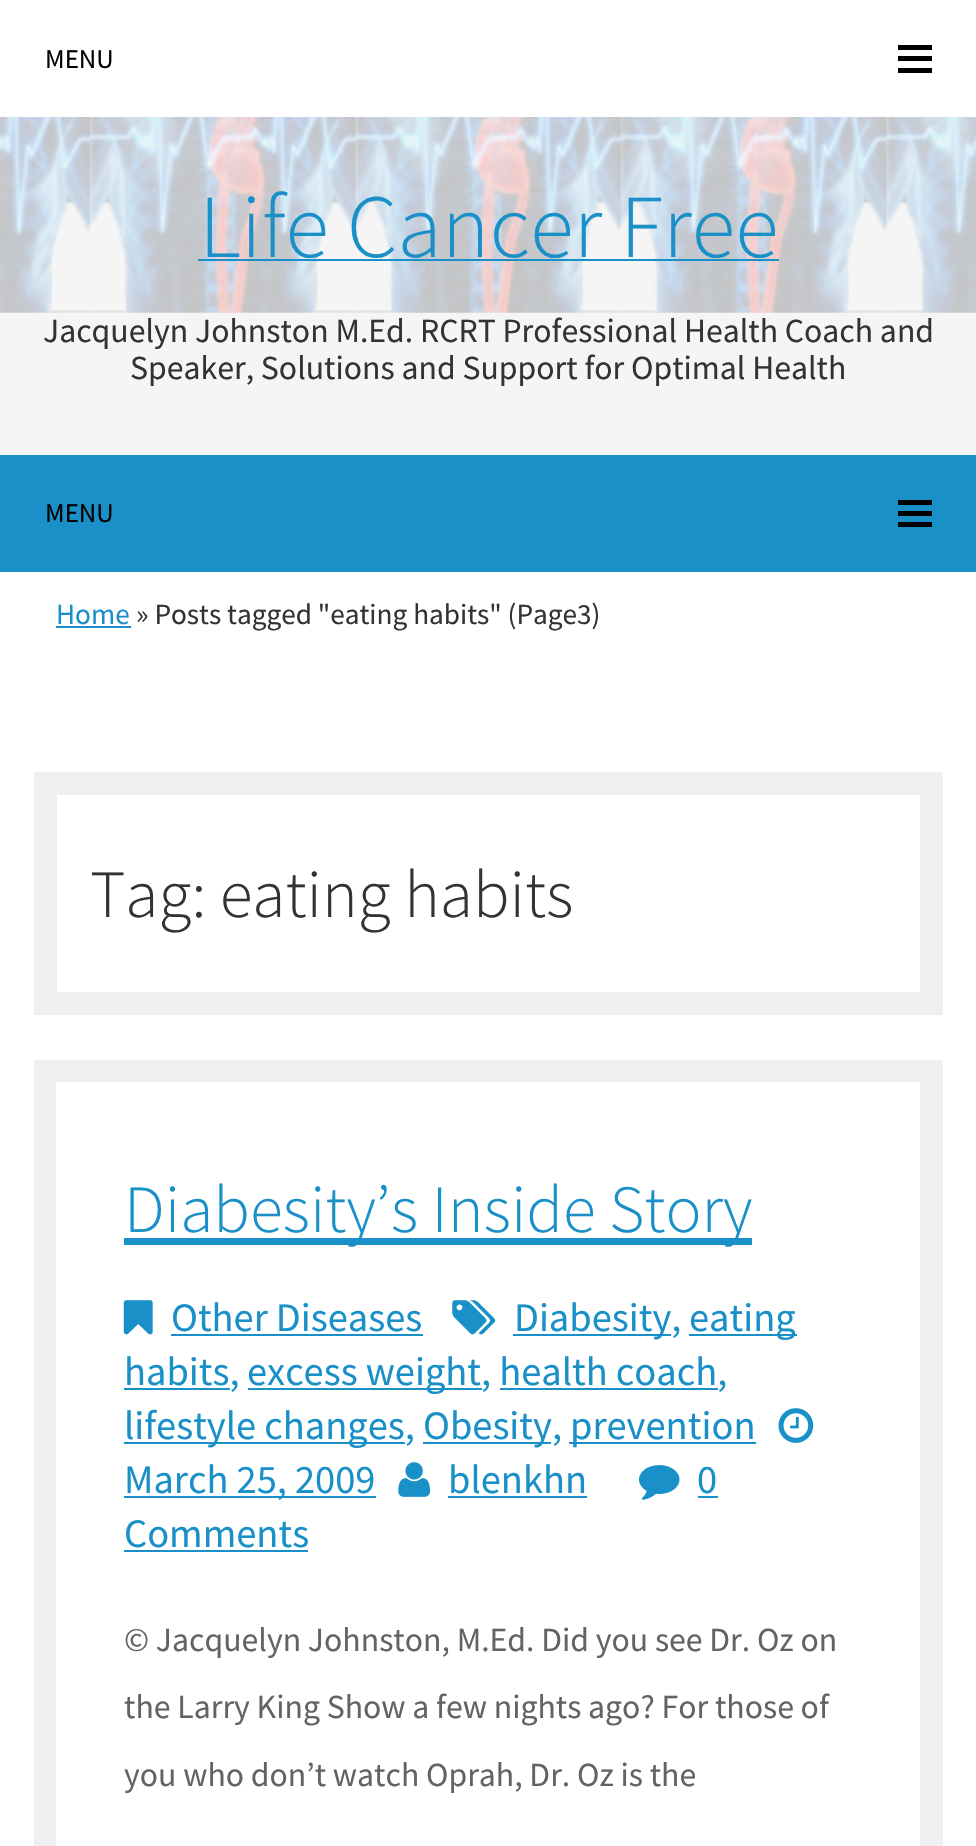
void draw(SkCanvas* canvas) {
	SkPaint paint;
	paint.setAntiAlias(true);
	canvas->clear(0xfff5f5f5);
	canvas->drawImageRect(SkImages::DeferredFromEncodedData(SkData::MakeFromFileName("img1.png")), SkRect::MakeXYWH(0, 117, 976, 196), SkSamplingOptions());
	paint.setColor(0xffffffff);
	canvas->drawRect(SkRect::MakeXYWH(0, 0, 976, 117), paint);
	paint.setColor(0xff000000);
	canvas->drawRect(SkRect::MakeXYWH(898, 45, 34, 5), paint);
	SkFont f1(fontMgr->matchFamilyStyle("Source Sans Pro", SkFontStyle::Normal()), 27);
	f1.setSubpixel(true);
	canvas->drawString("MENU", 45, 68, f1, paint);
	canvas->drawRect(SkRect::MakeXYWH(898, 56, 34, 5), paint);
	canvas->drawRect(SkRect::MakeXYWH(898, 68, 34, 5), paint);
	SkFont f2(fontMgr->matchFamilyStyle("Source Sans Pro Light", SkFontStyle(300, SkFontStyle::kNormal_Width, SkFontStyle::kUpright_Slant)), 90);
	f2.setSubpixel(true);
	paint.setColor(0xff1990c7);
	canvas->drawString("Life Cancer Free", 199, 257, f2, paint);
	canvas->drawRect(SkRect::MakeXYWH(198, 259, 581, 2), paint);
	SkFont f3(fontMgr->matchFamilyStyle("Source Sans Pro", SkFontStyle::Normal()), 33.75);
	f3.setSubpixel(true);
	paint.setColor(0xff333333);
	canvas->drawString("Jacquelyn Johnston M.Ed. RCRT Professional Health Coach and", 43, 342, f3, paint);
	canvas->drawString("Speaker, Solutions and Support for Optimal Health", 130, 379, f3, paint);
	paint.setColor(0xff1990c7);
	canvas->drawRect(SkRect::MakeXYWH(0, 455, 976, 117), paint);
	paint.setColor(0xff000000);
	canvas->drawRect(SkRect::MakeXYWH(898, 500, 34, 5), paint);
	canvas->drawString("MENU", 45, 522, f1, paint);
	canvas->drawRect(SkRect::MakeXYWH(898, 511, 34, 5), paint);
	canvas->drawRect(SkRect::MakeXYWH(898, 522, 34, 5), paint);
	paint.setColor(0xffffffff);
	canvas->drawRect(SkRect::MakeXYWH(0, 572, 976, 1274), paint);
	SkFont f4(fontMgr->matchFamilyStyle("Source Sans Pro", SkFontStyle::Normal()), 29.25);
	f4.setSubpixel(true);
	paint.setColor(0xff1990c7);
	canvas->drawString("Home", 56, 624, f4, paint);
	canvas->drawRect(SkRect::MakeXYWH(56, 626, 75, 2), paint);
	paint.setColor(0xff333333);
	canvas->drawString("» Posts tagged \"eating habits\" (Page3)", 136, 624, f4, paint);
	paint.setStroke(true);
	paint.setStrokeWidth(23);
	paint.setColor(0xffefefef);
	canvas->drawRect(SkRect::MakeXYWH(45.5, 783.5, 886, 220), paint);
	SkFont f5(fontMgr->matchFamilyStyle("Source Sans Pro Light", SkFontStyle(300, SkFontStyle::kNormal_Width, SkFontStyle::kUpright_Slant)), 67.5);
	f5.setSubpixel(true);
	paint.setStroke(false);
	paint.setColor(0xff333333);
	canvas->drawString("Tag: eating habits", 90, 917, f5, paint);
	paint.setStroke(true);
	paint.setColor(0xffefefef);
	canvas->drawRect(SkRect::MakeXYWH(45.5, 1071.5, 886, 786), paint);
	paint.setStroke(false);
	paint.setColor(0xffffffff);
	canvas->drawRect(SkRect::MakeXYWH(56, 1082, 864, 764), paint);
	paint.setColor(0xff1990c7);
	canvas->drawRect(SkRect::MakeXYWH(124, 1238, 628, 7), paint);
	canvas->drawString("Diabesity’s Inside Story", 124, 1232, f5, paint);
	canvas->drawImageRect(SkImages::DeferredFromEncodedData(SkData::MakeFromFileName("img2.png")), SkRect::MakeXYWH(452, 1300, 44, 35), SkSamplingOptions());
	canvas->drawRect(SkRect::MakeXYWH(513, 1334, 158, 2), paint);
	SkFont f6(fontMgr->matchFamilyStyle("Source Sans Pro", SkFontStyle::Normal()), 40.5);
	f6.setSubpixel(true);
	canvas->drawString("Diabesity,", 514, 1331, f6, paint);
	canvas->drawRect(SkRect::MakeXYWH(689, 1334, 108, 2), paint);
	canvas->drawString("eating", 689, 1331, f6, paint);
	canvas->drawRect(SkRect::MakeXYWH(124, 1388, 106, 2), paint);
	canvas->drawString("habits,", 124, 1385, f6, paint);
	canvas->drawRect(SkRect::MakeXYWH(248, 1388, 234, 2), paint);
	canvas->drawString("excess weight, health coach,", 247, 1385, f6, paint);
	canvas->drawRect(SkRect::MakeXYWH(500, 1388, 218, 2), paint);
	canvas->drawRect(SkRect::MakeXYWH(124, 1442, 281, 2), paint);
	canvas->drawString("lifestyle changes,", 124, 1439, f6, paint);
	canvas->drawRect(SkRect::MakeXYWH(423, 1442, 128, 2), paint);
	canvas->drawString("Obesity,", 423, 1439, f6, paint);
	canvas->drawRect(SkRect::MakeXYWH(569, 1442, 187, 2), paint);
	canvas->drawString("prevention", 570, 1439, f6, paint);
	canvas->drawImageRect(SkImages::DeferredFromEncodedData(SkData::MakeFromFileName("img3.png")), SkRect::MakeXYWH(123, 1300, 30, 35), SkSamplingOptions());
	canvas->drawString("Other Diseases", 171, 1331, f6, paint);
	canvas->drawRect(SkRect::MakeXYWH(171, 1334, 252, 2), paint);
	canvas->drawImageRect(SkImages::DeferredFromEncodedData(SkData::MakeFromFileName("img4.png")), SkRect::MakeXYWH(778, 1408, 36, 35), SkSamplingOptions());
	canvas->drawRect(SkRect::MakeXYWH(124, 1496, 252, 2), paint);
	canvas->drawString("March 25, 2009", 124, 1493, f6, paint);
	canvas->drawImageRect(SkImages::DeferredFromEncodedData(SkData::MakeFromFileName("img5.png")), SkRect::MakeXYWH(398, 1462, 33, 35), SkSamplingOptions());
	canvas->drawString("blenkhn", 448, 1493, f6, paint);
	canvas->drawRect(SkRect::MakeXYWH(448, 1496, 139, 2), paint);
	canvas->drawImageRect(SkImages::DeferredFromEncodedData(SkData::MakeFromFileName("img6.png")), SkRect::MakeXYWH(639, 1465, 41, 35), SkSamplingOptions());
	canvas->drawString("0", 697, 1493, f6, paint);
	canvas->drawRect(SkRect::MakeXYWH(698, 1496, 20, 2), paint);
	canvas->drawString("Comments", 124, 1547, f6, paint);
	canvas->drawRect(SkRect::MakeXYWH(124, 1550, 184, 2), paint);
	paint.setColor(0xff646363);
	canvas->drawString("© Jacquelyn Johnston, M.Ed. Did you see Dr. Oz on", 124, 1651, f3, paint);
	canvas->drawString("the Larry King Show a few nights ago? For those of", 124, 1718, f3, paint);
	canvas->drawString("you who don’t watch Oprah, Dr. Oz is the", 124, 1786, f3, paint);
}
